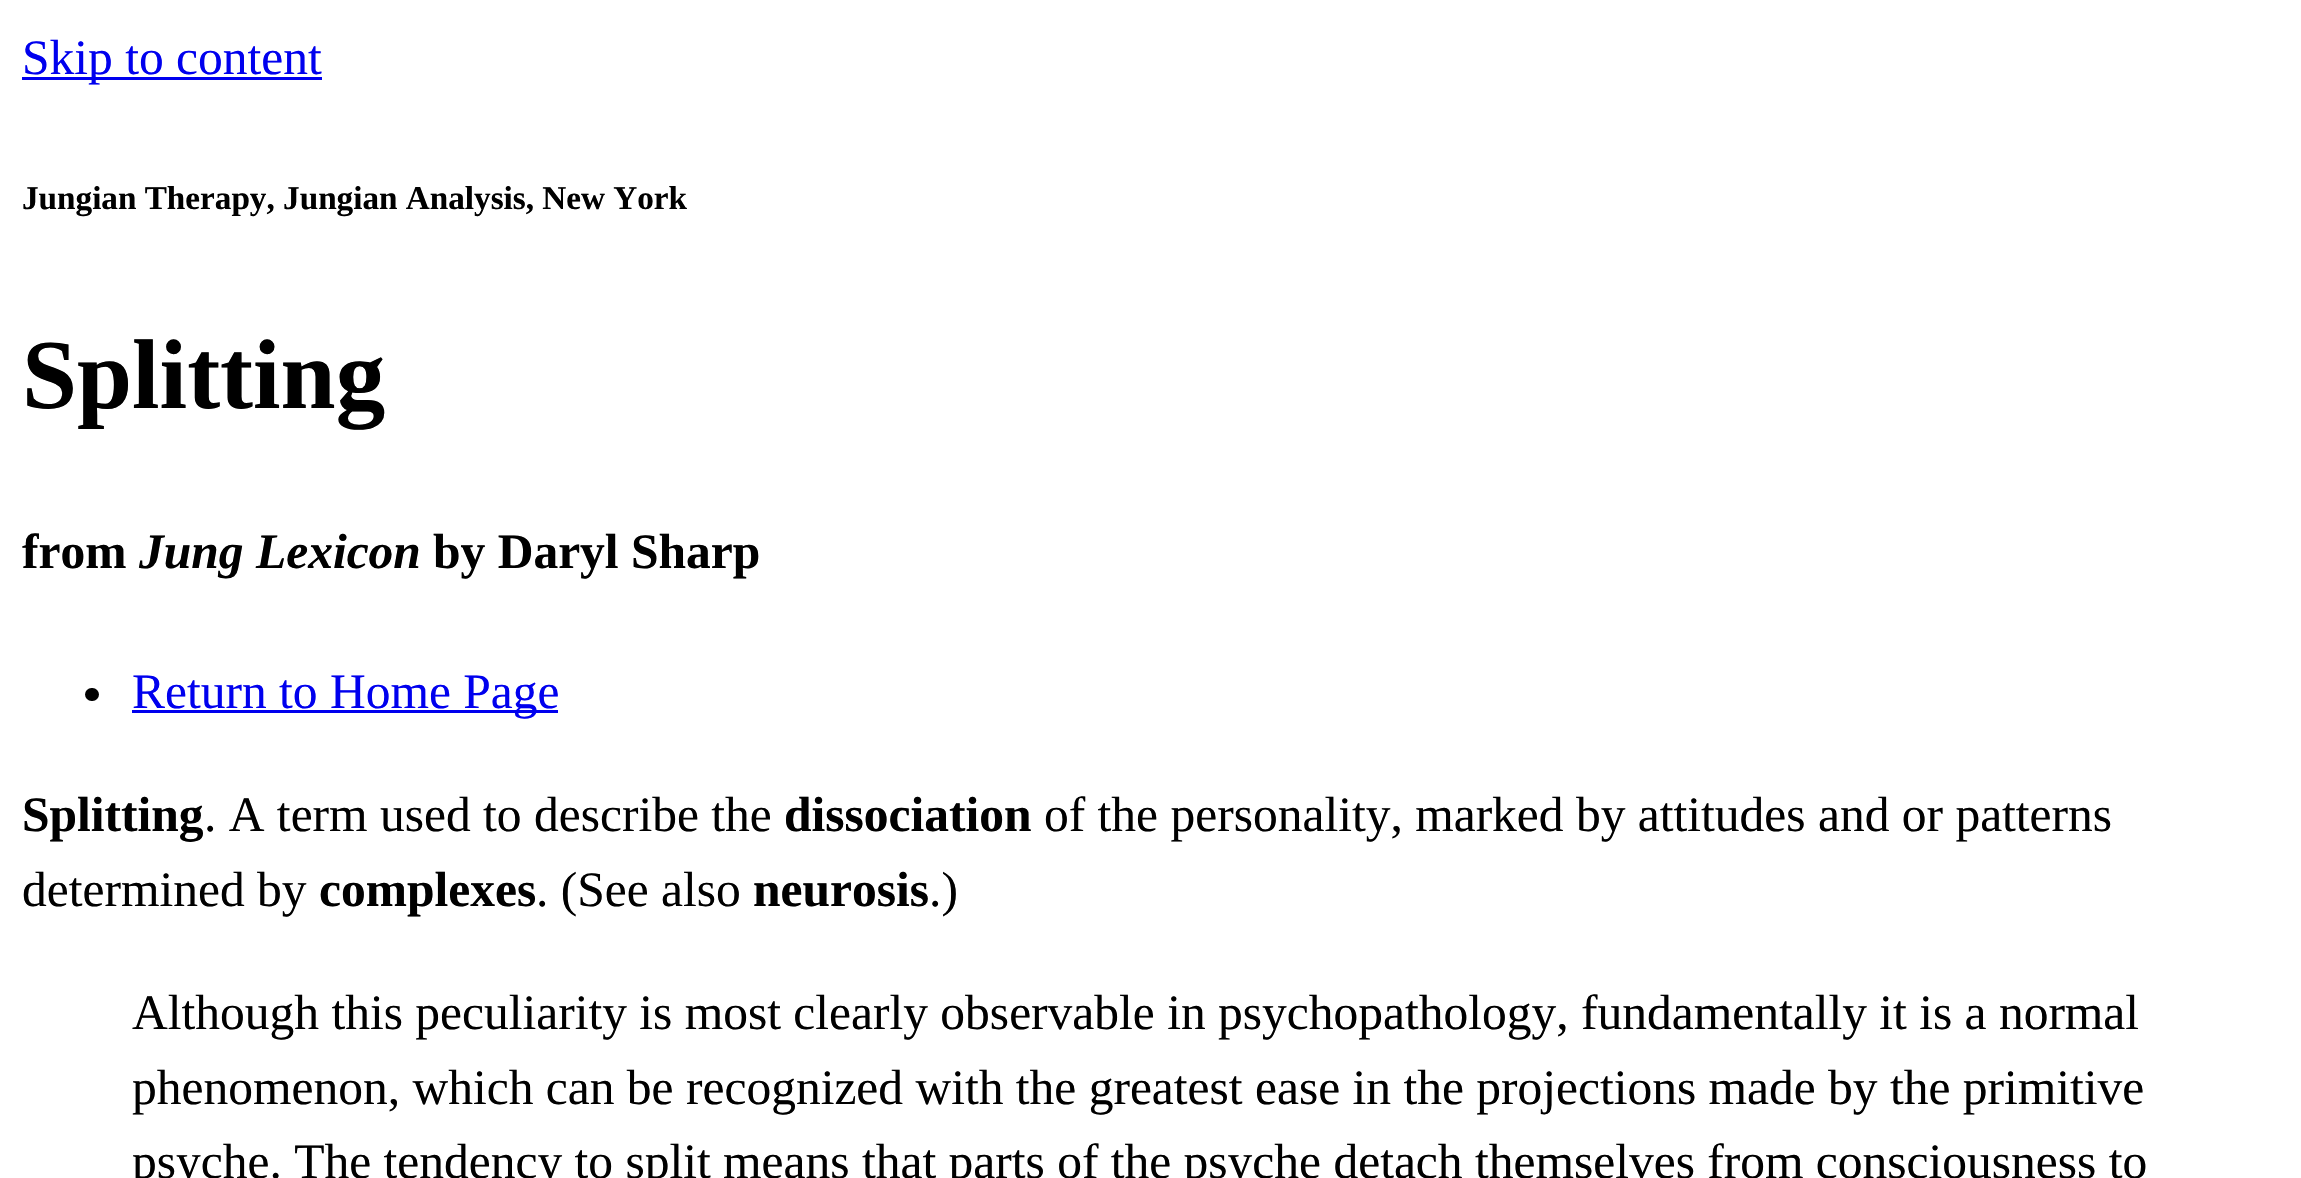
void draw(SkCanvas* canvas) {
	SkPaint paint;
	paint.setAntiAlias(true);
	canvas->clear(0xffffffff);
	paint.setColor(0xff0000ee);
	canvas->drawRect(SkRect::MakeXYWH(22, 77, 300, 3), paint);
	SkFont f1(fontMgr->matchFamilyStyle("Liberation Serif", SkFontStyle::Normal()), 49.5);
	f1.setSubpixel(true);
	canvas->drawString("Skip to content", 22, 74, f1, paint);
	SkFont f2(fontMgr->matchFamilyStyle("Liberation Serif", SkFontStyle::Bold()), 33.2);
	f2.setSubpixel(true);
	paint.setColor(0xff000000);
	canvas->drawString("Jungian Therapy, Jungian Analysis, New York", 22, 209, f2, paint);
	SkFont f3(fontMgr->matchFamilyStyle("Liberation Serif", SkFontStyle::Bold()), 99);
	f3.setSubpixel(true);
	canvas->drawString("Splitting", 22, 408, f3, paint);
	SkFont f4(fontMgr->matchFamilyStyle("Liberation Serif", SkFontStyle::Bold()), 49.5);
	f4.setSubpixel(true);
	canvas->drawString("from", 22, 568, f4, paint);
	SkFont f5(fontMgr->matchFamilyStyle("Liberation Serif", SkFontStyle::BoldItalic()), 49.5);
	f5.setSubpixel(true);
	canvas->drawString("Jung Lexicon", 139, 568, f5, paint);
	canvas->drawString("by Daryl Sharp", 433, 568, f4, paint);
	canvas->drawRoundRect(SkRect::MakeXYWH(85, 688, 14, 13), 6.5, 6.5, paint);
	paint.setColor(0xff0000ee);
	canvas->drawRect(SkRect::MakeXYWH(132, 710, 426, 3), paint);
	canvas->drawString("Return to Home Page", 132, 708, f1, paint);
	paint.setColor(0xff000000);
	canvas->drawString("Splitting", 22, 831, f4, paint);
	canvas->drawString(". A term used to describe the", 204, 831, f1, paint);
	canvas->drawString("dissociation", 784, 831, f4, paint);
	canvas->drawString("of the personality, marked by attitudes and or patterns", 1044, 831, f1, paint);
	canvas->drawString("determined by", 22, 906, f1, paint);
	canvas->drawString("complexes", 319, 906, f4, paint);
	canvas->drawString(". (See also", 536, 906, f1, paint);
	canvas->drawString("neurosis", 753, 906, f4, paint);
	canvas->drawString(".)", 929, 906, f1, paint);
	canvas->drawString("Although this peculiarity is most clearly observable in psychopathology, fundamentally it is a normal", 132, 1029, f1, paint);
	canvas->drawString("phenomenon, which can be recognized with the greatest ease in the projections made by the primitive", 132, 1104, f1, paint);
	canvas->drawString("psyche. The tendency to split means that parts of the psyche detach themselves from consciousness to", 132, 1178, f1, paint);
}
